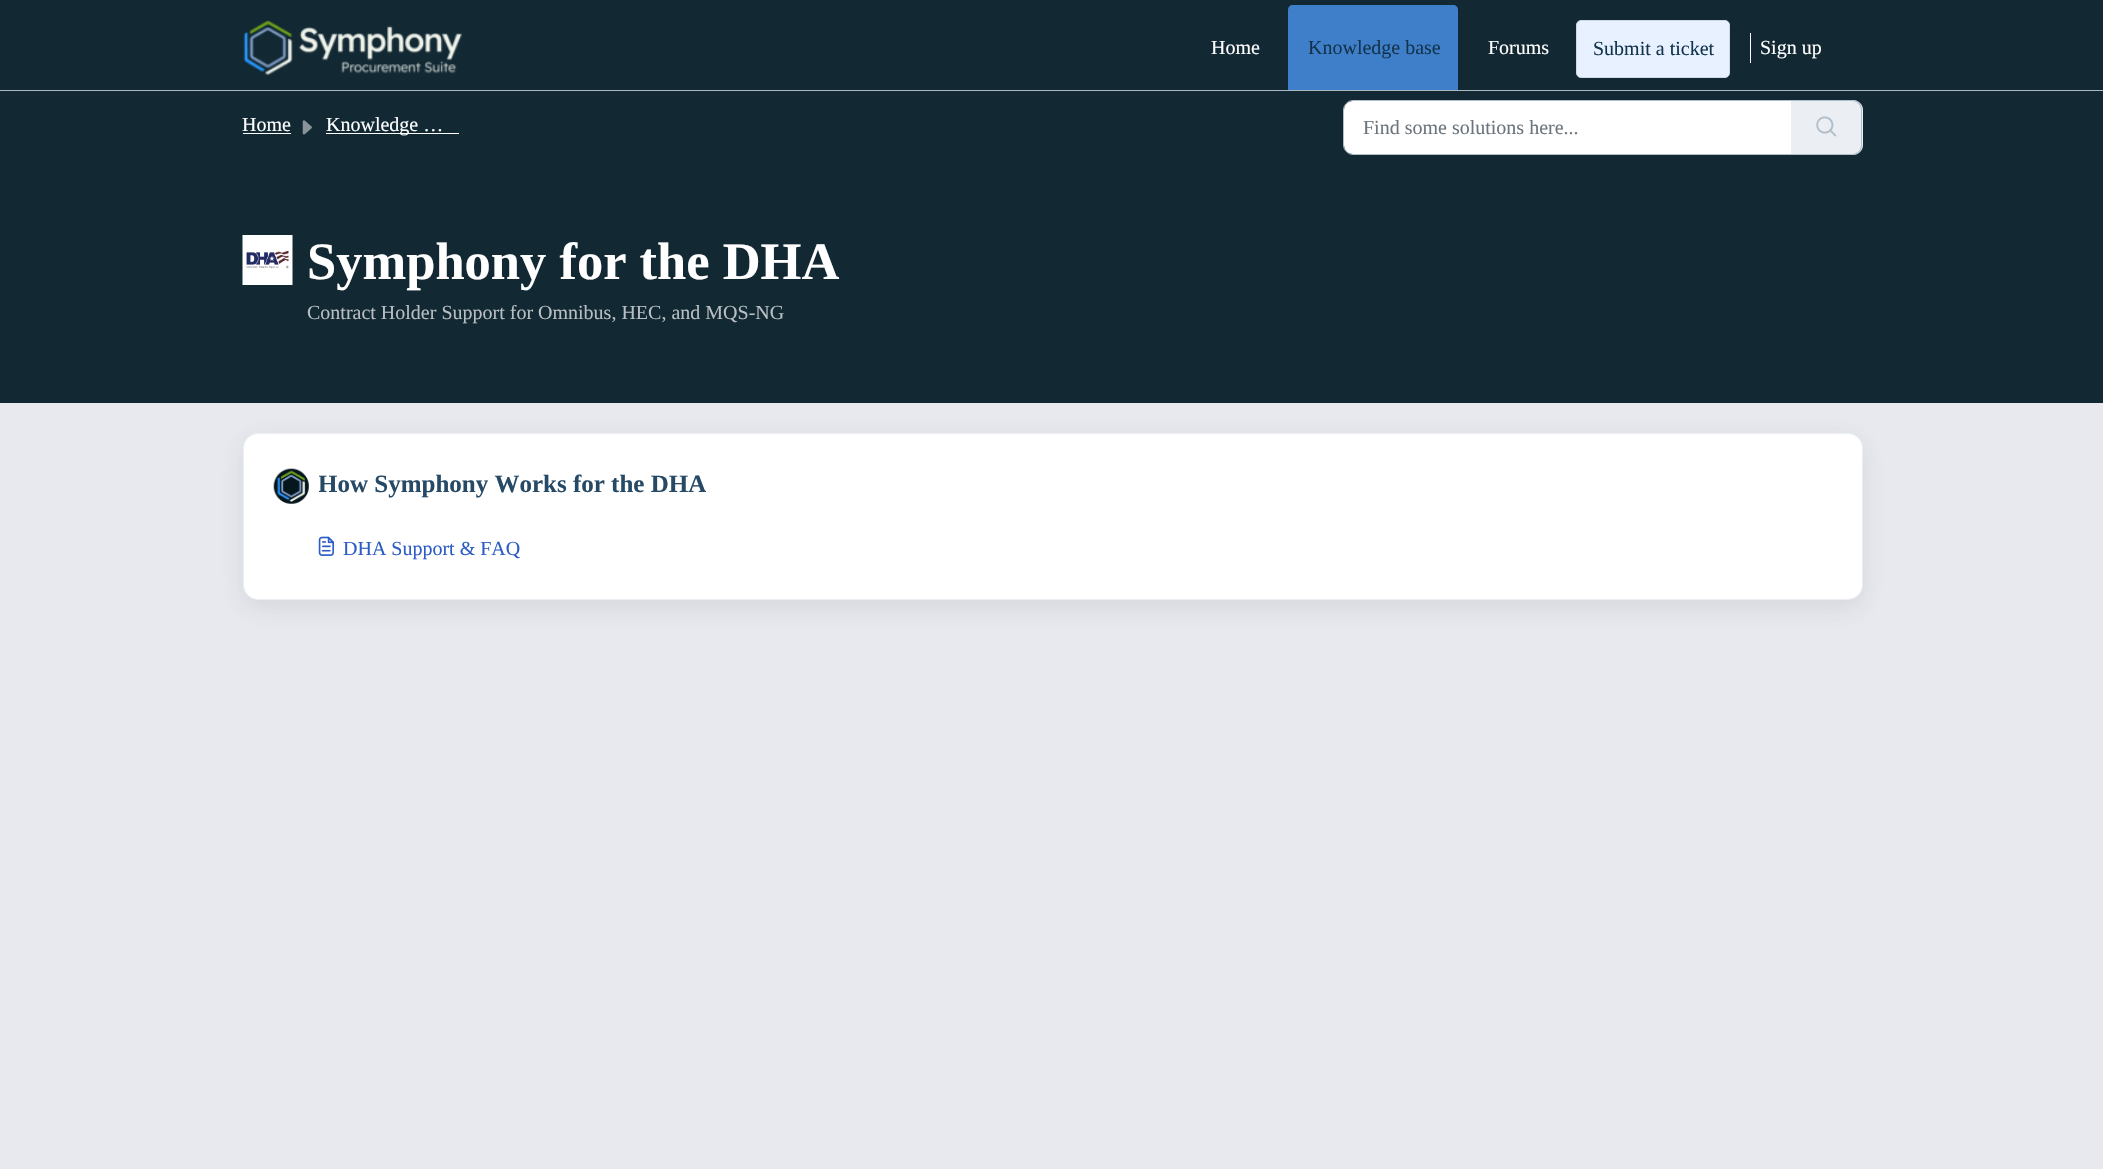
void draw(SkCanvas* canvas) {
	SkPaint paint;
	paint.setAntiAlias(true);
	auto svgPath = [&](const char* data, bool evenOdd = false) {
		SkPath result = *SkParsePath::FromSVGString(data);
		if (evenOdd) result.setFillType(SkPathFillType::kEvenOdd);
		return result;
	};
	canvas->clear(0xffe7e9ee);
	paint.setColor(0xff122833);
	canvas->drawRect(SkRect::MakeXYWH(0, 0, 2103, 90), paint);
	paint.setColor(0xffabb8c3);
	canvas->drawRect(SkRect::MakeXYWH(0, 90, 2103, 1), paint);
	canvas->drawImageRect(SkImages::DeferredFromEncodedData(SkData::MakeFromFileName("img1.png")), SkRect::MakeXYWH(243, 20, 220, 56), SkSamplingOptions());
	SkFont f1(fontMgr->matchFamilyStyle("Liberation Serif", SkFontStyle::Normal()), 20);
	f1.setSubpixel(true);
	paint.setColor(0xffffffff);
	canvas->drawString("Home", 1211, 54, f1, paint);
	paint.setColor(0xff3f7fca);
	canvas->drawPath(svgPath("M1293 5H1453C1456 5 1458 7 1458 10V90H1288V10C1288 7 1290 5 1293 5Z"), paint);
	paint.setColor(0xff12344d);
	canvas->drawString("Knowledge base", 1308, 54, f1, paint);
	paint.setColor(0xffffffff);
	canvas->drawString("Forums", 1488, 54, f1, paint);
	paint.setColor(0xffe7f1ff);
	canvas->drawRoundRect(SkRect::MakeXYWH(1576.5, 20.5, 153, 57), 4.5, 4.5, paint);
	paint.setStroke(true);
	paint.setStrokeWidth(1);
	paint.setColor(0xffcfd7df);
	canvas->drawRoundRect(SkRect::MakeXYWH(1576.5, 20.5, 153, 57), 4.5, 4.5, paint);
	paint.setStroke(false);
	paint.setColor(0xff12344d);
	canvas->drawString("Submit a ticket", 1593, 55, f1, paint);
	paint.setColor(0xffffffff);
	canvas->drawRect(SkRect::MakeXYWH(1750, 33, 1, 30), paint);
	canvas->drawString("Sign up", 1760, 54, f1, paint);
	paint.setColor(0xff122833);
	canvas->drawRect(SkRect::MakeXYWH(0, 91, 2103, 312), paint);
	paint.setColor(0xffffffff);
	canvas->drawString("Home", 242, 131, f1, paint);
	canvas->drawRect(SkRect::MakeXYWH(243, 133, 48, 1), paint);
	canvas->drawImageRect(SkImages::DeferredFromEncodedData(SkData::MakeFromFileName("img2.png")), SkRect::MakeXYWH(302, 120, 10, 15), SkSamplingOptions());
	canvas->drawRect(SkRect::MakeXYWH(326, 133, 133, 1), paint);
	canvas->drawString("Knowledge …", 326, 131, f1, paint);
	canvas->drawPath(svgPath("M1353 101H1791V154H1353C1348 154 1344 150 1344 145V110C1344 105 1348 101 1353 101Z"), paint);
	paint.setStroke(true);
	paint.setColor(0xffb1bdc8);
	canvas->drawPath(svgPath("M1353 100.5H1792.5V154.5H1353C1348 154.5 1343.5 150 1343.5 145V110C1343.5 105 1348 100.5 1353 100.5Z"), paint);
	paint.setStroke(false);
	paint.setColor(0xff6c757d);
	canvas->drawString("Find some solutions here...", 1363, 134, f1, paint);
	paint.setColor(0xffebeff3);
	canvas->drawPath(svgPath("M1791 100H1853C1858.5 100 1863 104.5 1863 110V145C1863 150.5 1858.5 155 1853 155H1791Z"), paint);
	paint.setColor(0xffb1bdc8);
	canvas->drawPath(svgPath("M1791 100H1852C1858 100 1862 104 1862 110V145C1862 151 1858 155 1852 155H1791ZM1791 101H1852C1857 101 1861 105 1861 110V145C1861 150 1857 154 1852 154H1791Z", true), paint);
	canvas->drawImageRect(SkImages::DeferredFromEncodedData(SkData::MakeFromFileName("img3.png")), SkRect::MakeXYWH(1816, 116, 21, 21), SkSamplingOptions());
	canvas->drawImageRect(SkImages::DeferredFromEncodedData(SkData::MakeFromFileName("img4.png")), SkRect::MakeXYWH(242, 235, 51, 50), SkSamplingOptions());
	SkFont f2(fontMgr->matchFamilyStyle("Liberation Serif", SkFontStyle::Bold()), 52.5);
	f2.setSubpixel(true);
	paint.setColor(0xffffffff);
	canvas->drawString("Symphony for the DHA", 307, 279, f2, paint);
	paint.setColor(0xffb8bfc2);
	canvas->drawString("Contract Holder Support for Omnibus, HEC, and MQS-NG", 307, 319, f1, paint);
	paint.setColor(0x1a27313a);
	paint.setMaskFilter(SkMaskFilter::MakeBlur(kNormal_SkBlurStyle, 12));
	canvas->drawRoundRect(SkRect::MakeXYWH(243, 440, 1620, 168), 15, 15, paint);
	paint.setMaskFilter(nullptr);
	paint.setColor(0xffffffff);
	canvas->drawRoundRect(SkRect::MakeXYWH(243.5, 433.5, 1619, 166), 14.5, 14.5, paint);
	paint.setStroke(true);
	paint.setColor(0xffebeff3);
	canvas->drawRoundRect(SkRect::MakeXYWH(243.5, 433.5, 1619, 166), 14.5, 14.5, paint);
	canvas->drawImageRect(SkImages::DeferredFromEncodedData(SkData::MakeFromFileName("img5.png")), SkRect::MakeXYWH(273, 468, 36, 36), SkSamplingOptions());
	canvas->save();
	canvas->clipRect(SkRect::MakeXYWH(319, 464, 387, 40));
	SkFont f3(fontMgr->matchFamilyStyle("Liberation Serif", SkFontStyle::Bold()), 25);
	f3.setSubpixel(true);
	paint.setStroke(false);
	paint.setColor(0xff264966);
	canvas->drawString("How Symphony Works for the DHA", 318, 492, f3, paint);
	canvas->restore();
	canvas->drawImageRect(SkImages::DeferredFromEncodedData(SkData::MakeFromFileName("img6.png")), SkRect::MakeXYWH(318, 536, 16, 20), SkSamplingOptions());
	paint.setColor(0xff2c5cc5);
	canvas->drawString("DHA Support & FAQ", 343, 555, f1, paint);
}
